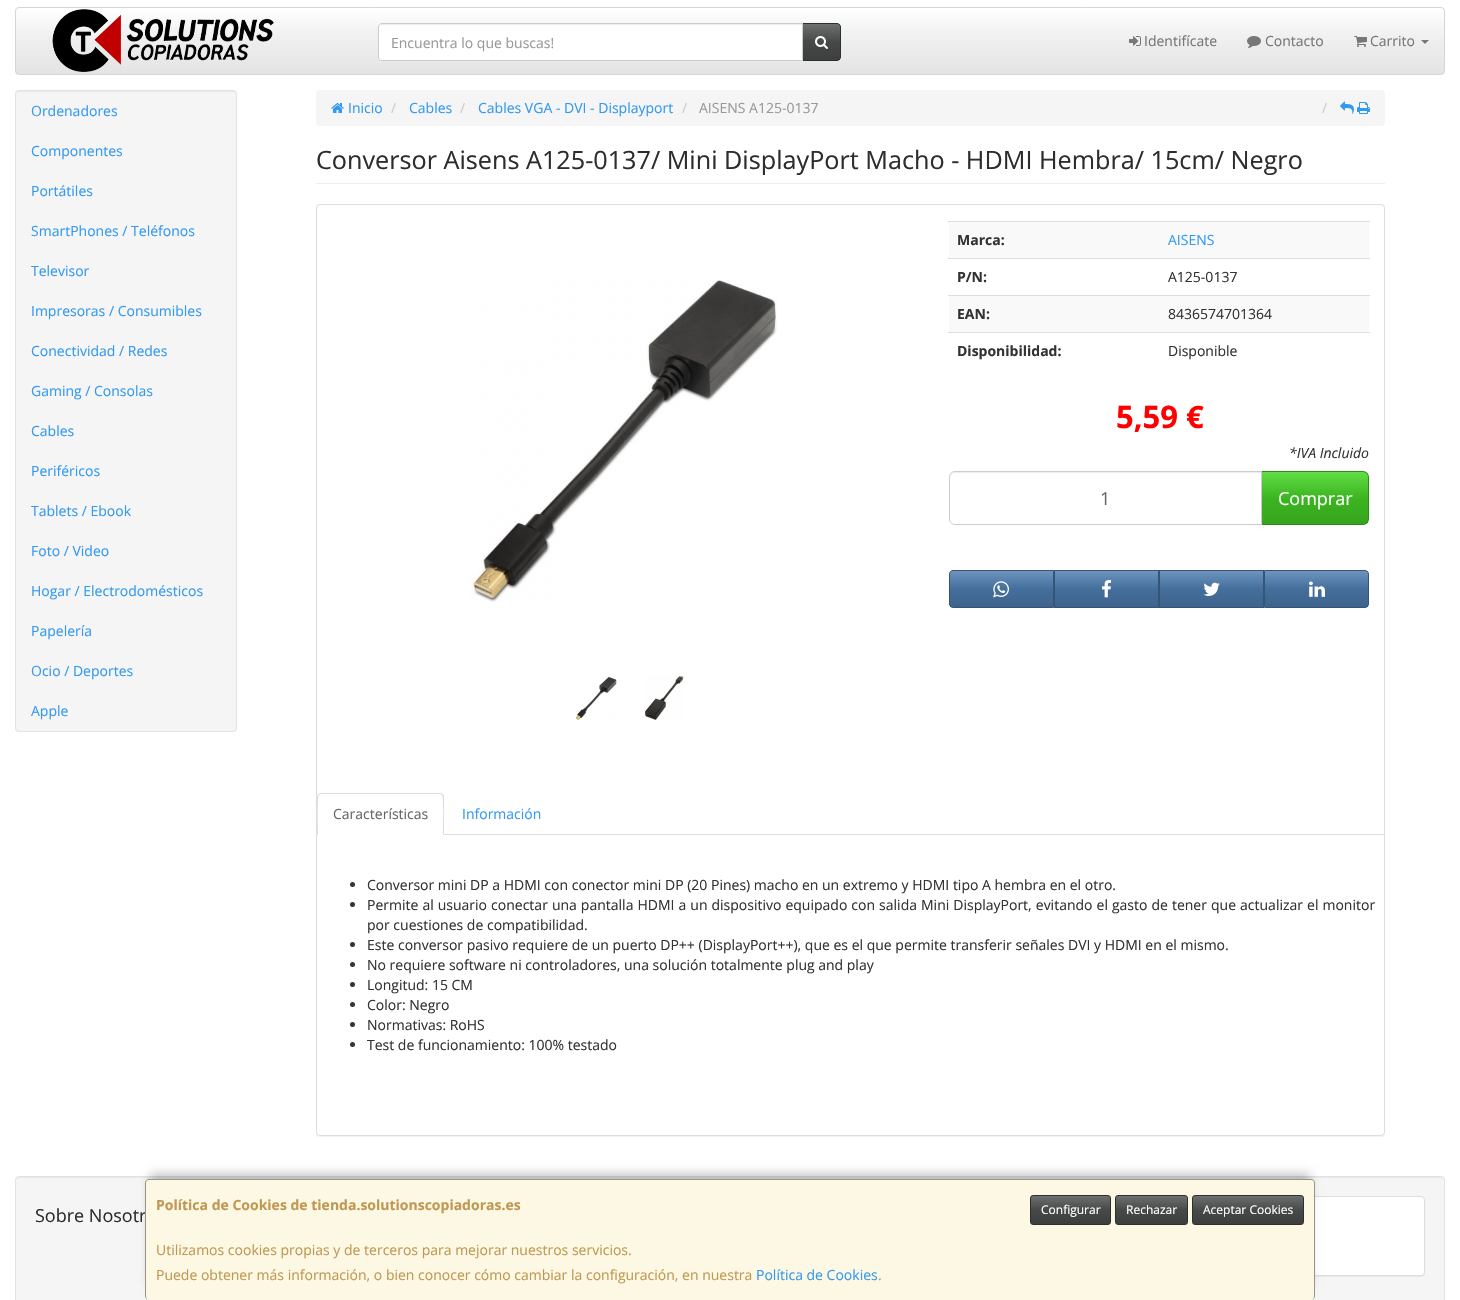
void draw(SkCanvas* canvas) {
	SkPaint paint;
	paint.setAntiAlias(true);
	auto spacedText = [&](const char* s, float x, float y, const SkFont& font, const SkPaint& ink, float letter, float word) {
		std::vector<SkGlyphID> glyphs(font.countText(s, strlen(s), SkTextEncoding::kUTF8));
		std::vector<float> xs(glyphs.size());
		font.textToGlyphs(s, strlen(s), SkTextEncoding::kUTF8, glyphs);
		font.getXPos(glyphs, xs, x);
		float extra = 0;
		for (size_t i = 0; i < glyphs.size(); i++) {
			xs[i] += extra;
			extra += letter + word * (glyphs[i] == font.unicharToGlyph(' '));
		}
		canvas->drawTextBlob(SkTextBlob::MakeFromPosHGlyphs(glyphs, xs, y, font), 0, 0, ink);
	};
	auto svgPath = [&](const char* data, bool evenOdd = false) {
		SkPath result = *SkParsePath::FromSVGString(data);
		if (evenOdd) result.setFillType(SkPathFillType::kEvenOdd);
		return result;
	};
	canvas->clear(0xffffffff);
	canvas->save();
	canvas->clipPath(svgPath("M19 7H1441C1443 7 1445 9 1445 11V71C1445 73 1443 75 1441 75H19C17 75 15 73 15 71V11C15 9 17 7 19 7Z"), true);
	{
		const SkColor colors[] = {0xffffffff, 0xffeeeeee, 0xffe4e4e4};
		const float stops[] = {0, 0.5, 1};
		const SkPoint ends[] = {{730, 8}, {730, 74}};
		paint.setShader(SkGradientShader::MakeLinear(ends, colors, stops, 3, SkTileMode::kClamp));
		paint.setAlpha(255);
	}
	canvas->drawRect(SkRect::MakeXYWH(16, 8, 1428, 66), paint);
	canvas->restore();
	paint.setStroke(true);
	paint.setStrokeWidth(1);
	paint.setShader(nullptr);
	paint.setColor(0xffd5d5d5);
	canvas->drawRoundRect(SkRect::MakeXYWH(15.5, 7.5, 1429, 67), 3.5, 3.5, paint);
	canvas->drawImageRect(SkImages::DeferredFromEncodedData(SkData::MakeFromFileName("img1.png")), SkRect::MakeXYWH(52, 9, 222, 63), SkSamplingOptions());
	paint.setStroke(false);
	{
		const SkColor colors[] = {0xff6d7070, 0xff474949, 0xff3d3f3f};
		const float stops[] = {0, 0.5, 1};
		const SkPoint ends[] = {{822, 24}, {822, 60}};
		paint.setShader(SkGradientShader::MakeLinear(ends, colors, stops, 3, SkTileMode::kClamp));
		paint.setAlpha(255);
	}
	canvas->drawRect(SkRect::MakeXYWH(803, 24, 37, 36), paint);
	paint.setStroke(true);
	paint.setShader(nullptr);
	paint.setColor(0xff2e2f2f);
	canvas->drawPath(svgPath("M802.5 23.5H837C839 23.5 840.5 25 840.5 27V57C840.5 59 839 60.5 837 60.5H802.5Z"), paint);
	paint.setStroke(false);
	paint.setColor(0xffffffff);
	canvas->drawPath(svgPath("M382 23H803V61H382C380 61 378 59 378 57V27C378 25 380 23 382 23Z"), paint);
	paint.setColor(0xffececec);
	canvas->drawPath(svgPath("M382 25H802V24H382C380 24 379 26 379 28C379 26 380 25 382 25Z"), paint);
	paint.setStroke(true);
	paint.setColor(0xffcccccc);
	canvas->drawPath(svgPath("M382 23.5H802.5V60.5H382C380 60.5 378.5 59 378.5 57V27C378.5 25 380 23.5 382 23.5Z"), paint);
	SkFont f1(fontMgr->matchFamilyStyle("Open Sans", SkFontStyle::Normal()), 14);
	f1.setSubpixel(true);
	paint.setStroke(false);
	paint.setColor(0xff999999);
	canvas->drawString("Encuentra lo que buscas!", 391, 48, f1, paint);
	canvas->drawImageRect(SkImages::DeferredFromEncodedData(SkData::MakeFromFileName("img2.png")), SkRect::MakeXYWH(815, 36, 13, 13), SkSamplingOptions());
	canvas->drawImageRect(SkImages::DeferredFromEncodedData(SkData::MakeFromFileName("img3.png")), SkRect::MakeXYWH(1129, 36, 12, 10), SkSamplingOptions());
	paint.setColor(0xff777777);
	canvas->drawString("Identifícate", 1144, 46, f1, paint);
	canvas->drawImageRect(SkImages::DeferredFromEncodedData(SkData::MakeFromFileName("img4.png")), SkRect::MakeXYWH(1247, 36, 14, 12), SkSamplingOptions());
	canvas->drawString("Contacto", 1265, 46, f1, paint);
	canvas->drawImageRect(SkImages::DeferredFromEncodedData(SkData::MakeFromFileName("img5.png")), SkRect::MakeXYWH(1354, 36, 13, 11), SkSamplingOptions());
	canvas->drawString("Carrito", 1370, 46, f1, paint);
	canvas->drawPath(svgPath("M1421 40H1429L1425 44Z"), paint);
	paint.setColor(0xfff5f5f5);
	canvas->drawRoundRect(SkRect::MakeXYWH(15, 90, 222, 642), 4, 4, paint);
	paint.setColor(0xffe9e9e9);
	canvas->drawPath(svgPath("M19 92H233C235 92 236 93 236 95V94C236 92 235 91 233 91H19C17 91 16 92 16 94V95C16 93 17 92 19 92Z"), paint);
	paint.setStroke(true);
	paint.setColor(0xffe3e3e3);
	canvas->drawRoundRect(SkRect::MakeXYWH(15.5, 90.5, 221, 641), 3.5, 3.5, paint);
	paint.setStroke(false);
	paint.setColor(0xff3399f3);
	canvas->drawString("Ordenadores", 31, 116, f1, paint);
	canvas->drawString("Componentes", 31, 156, f1, paint);
	canvas->drawString("Portátiles", 31, 196, f1, paint);
	canvas->drawString("SmartPhones / Teléfonos", 31, 236, f1, paint);
	canvas->drawString("Televisor", 31, 276, f1, paint);
	canvas->drawString("Impresoras / Consumibles", 31, 316, f1, paint);
	canvas->drawString("Conectividad / Redes", 31, 356, f1, paint);
	canvas->drawString("Gaming / Consolas", 31, 396, f1, paint);
	canvas->drawString("Cables", 31, 436, f1, paint);
	canvas->drawString("Periféricos", 31, 476, f1, paint);
	canvas->drawString("Tablets / Ebook", 31, 516, f1, paint);
	canvas->drawString("Foto / Video", 31, 556, f1, paint);
	canvas->drawString("Hogar / Electrodomésticos", 31, 596, f1, paint);
	canvas->drawString("Papelería", 31, 636, f1, paint);
	canvas->drawString("Ocio / Deportes", 31, 676, f1, paint);
	canvas->drawString("Apple", 31, 716, f1, paint);
	paint.setColor(0xfff5f5f5);
	canvas->drawRoundRect(SkRect::MakeXYWH(316, 90, 1069, 36), 4, 4, paint);
	canvas->drawImageRect(SkImages::DeferredFromEncodedData(SkData::MakeFromFileName("img6.png")), SkRect::MakeXYWH(331, 103, 13, 10), SkSamplingOptions());
	paint.setColor(0xff3399f3);
	canvas->drawString("Inicio", 348, 113, f1, paint);
	paint.setColor(0xffcccccc);
	canvas->drawString("/", 391, 113, f1, paint);
	paint.setColor(0xff3399f3);
	canvas->drawString("Cables", 409, 113, f1, paint);
	paint.setColor(0xffcccccc);
	canvas->drawString("/", 460, 113, f1, paint);
	paint.setColor(0xff3399f3);
	canvas->drawString("Cables VGA - DVI - Displayport", 478, 113, f1, paint);
	paint.setColor(0xffcccccc);
	canvas->drawString("/", 682, 113, f1, paint);
	paint.setColor(0xff999999);
	canvas->drawString("AISENS A125-0137", 699, 113, f1, paint);
	paint.setColor(0xffcccccc);
	canvas->drawString("/", 1322, 113, f1, paint);
	canvas->drawImageRect(SkImages::DeferredFromEncodedData(SkData::MakeFromFileName("img7.png")), SkRect::MakeXYWH(1340, 101, 14, 13), SkSamplingOptions());
	canvas->drawImageRect(SkImages::DeferredFromEncodedData(SkData::MakeFromFileName("img8.png")), SkRect::MakeXYWH(1357, 102, 13, 12), SkSamplingOptions());
	paint.setColor(0xffeeeeee);
	canvas->drawRect(SkRect::MakeXYWH(316, 183, 1069, 1), paint);
	SkFont f2(fontMgr->matchFamilyStyle("Open Sans", SkFontStyle::Normal()), 25.2);
	f2.setSubpixel(true);
	paint.setColor(0xff2d2d2d);
	canvas->drawString("Conversor Aisens A125-0137/ Mini DisplayPort Macho - HDMI Hembra/ 15cm/ Negro", 316, 169, f2, paint);
	paint.setColor(0x0d000000);
	paint.setMaskFilter(SkMaskFilter::MakeBlur(kNormal_SkBlurStyle, 0.5));
	canvas->drawRoundRect(SkRect::MakeXYWH(316, 205, 1069, 932), 4, 4, paint);
	paint.setMaskFilter(nullptr);
	paint.setColor(0xffffffff);
	canvas->drawRoundRect(SkRect::MakeXYWH(316.5, 204.5, 1068, 931), 3.5, 3.5, paint);
	paint.setStroke(true);
	paint.setColor(0xffdddddd);
	canvas->drawRoundRect(SkRect::MakeXYWH(316.5, 204.5, 1068, 931), 3.5, 3.5, paint);
	canvas->drawImageRect(SkImages::DeferredFromEncodedData(SkData::MakeFromFileName("img9.png")), SkRect::MakeXYWH(470, 280, 307, 324), SkSamplingOptions());
	canvas->drawImageRect(SkImages::DeferredFromEncodedData(SkData::MakeFromFileName("img10.png")), SkRect::MakeXYWH(575, 677, 42, 43), SkSamplingOptions());
	canvas->drawImageRect(SkImages::DeferredFromEncodedData(SkData::MakeFromFileName("img11.png")), SkRect::MakeXYWH(645, 675, 39, 45), SkSamplingOptions());
	paint.setStroke(false);
	paint.setColor(0xfff9f9f9);
	canvas->drawRect(SkRect::MakeXYWH(949, 222, 420, 36), paint);
	SkFont f3(fontMgr->matchFamilyStyle("Open Sans", SkFontStyle::Bold()), 14);
	f3.setSubpixel(true);
	paint.setColor(0xff333333);
	canvas->drawString("Marca:", 957, 245, f3, paint);
	paint.setColor(0xffdddddd);
	canvas->drawRect(SkRect::MakeXYWH(948, 221, 422, 1), paint);
	paint.setColor(0xff3399f3);
	canvas->drawString("AISENS", 1168, 245, f1, paint);
	paint.setColor(0xff333333);
	canvas->drawString("P/N:", 957, 282, f3, paint);
	paint.setColor(0xffdddddd);
	canvas->drawRect(SkRect::MakeXYWH(948, 258, 422, 1), paint);
	paint.setColor(0xff333333);
	canvas->drawString("A125-0137", 1168, 282, f1, paint);
	paint.setColor(0xfff9f9f9);
	canvas->drawRect(SkRect::MakeXYWH(949, 296, 420, 36), paint);
	paint.setColor(0xff333333);
	canvas->drawString("EAN:", 957, 319, f3, paint);
	paint.setColor(0xffdddddd);
	canvas->drawRect(SkRect::MakeXYWH(948, 295, 422, 1), paint);
	paint.setColor(0xff333333);
	canvas->drawString("8436574701364", 1168, 319, f1, paint);
	canvas->drawString("Disponibilidad:", 957, 356, f3, paint);
	paint.setColor(0xffdddddd);
	canvas->drawRect(SkRect::MakeXYWH(948, 332, 422, 1), paint);
	paint.setColor(0xff333333);
	canvas->drawString("Disponible", 1168, 356, f1, paint);
	SkFont f4(fontMgr->matchFamilyStyle("Open Sans", SkFontStyle::Bold()), 31);
	f4.setSubpixel(true);
	paint.setColor(0xffff0000);
	canvas->drawString("5,59 €", 1116, 428, f4, paint);
	SkFont f5(fontMgr->matchFamilyStyle("Open Sans", SkFontStyle::Italic()), 14);
	f5.setSubpixel(true);
	paint.setColor(0xff333333);
	canvas->drawString("*IVA Incluido", 1289, 458, f5, paint);
	canvas->save();
	canvas->clipPath(svgPath("M1261 471H1363C1366.5 471 1369 473.5 1369 477V519C1369 522.5 1366.5 525 1363 525H1261Z"), true);
	{
		const SkColor colors[] = {0xff61dd45, 0xff3cb521, 0xff36a41e};
		const float stops[] = {0, 0.5, 1};
		const SkPoint ends[] = {{1315, 472}, {1315, 524}};
		paint.setShader(SkGradientShader::MakeLinear(ends, colors, stops, 3, SkTileMode::kClamp));
		paint.setAlpha(255);
	}
	canvas->drawRect(SkRect::MakeXYWH(1262, 472, 106, 52), paint);
	canvas->restore();
	paint.setStroke(true);
	paint.setShader(nullptr);
	paint.setColor(0xff2e8a19);
	canvas->drawPath(svgPath("M1261.5 471.5H1363C1366 471.5 1368.5 474 1368.5 477V519C1368.5 522 1366 524.5 1363 524.5H1261.5Z"), paint);
	paint.setStroke(false);
	paint.setColor(0xffffffff);
	canvas->drawPath(svgPath("M955 471H1262V525H955C951.5 525 949 522.5 949 519V477C949 473.5 951.5 471 955 471Z"), paint);
	paint.setColor(0xffececec);
	canvas->drawPath(svgPath("M955 473H1261V472H955C952 472 950 475 950 478C950 475 952 473 955 473Z"), paint);
	paint.setStroke(true);
	paint.setColor(0xffcccccc);
	canvas->drawPath(svgPath("M955 471.5H1261.5V524.5H955C952 524.5 949.5 522 949.5 519V477C949.5 474 952 471.5 955 471.5Z"), paint);
	SkFont f6(fontMgr->matchFamilyStyle("Open Sans", SkFontStyle::Normal()), 18);
	f6.setSubpixel(true);
	paint.setStroke(false);
	paint.setColor(0xff666666);
	canvas->drawString("1", 1100, 505, f6, paint);
	paint.setColor(0xffffffff);
	canvas->drawString("Comprar", 1278, 505, f6, paint);
	{
		const SkColor colors[] = {0xff6d94bf, 0xff446e9b, 0xff3e648d};
		const float stops[] = {0, 0.5, 1};
		const SkPoint ends[] = {{1002, 571}, {1002, 607}};
		paint.setShader(SkGradientShader::MakeLinear(ends, colors, stops, 3, SkTileMode::kClamp));
		paint.setAlpha(255);
	}
	canvas->drawRect(SkRect::MakeXYWH(950, 571, 103, 36), paint);
	paint.setStroke(true);
	paint.setShader(nullptr);
	paint.setColor(0xff345578);
	canvas->drawPath(svgPath("M953 570.5H1053.5V607.5H953C951 607.5 949.5 606 949.5 604V574C949.5 572 951 570.5 953 570.5Z"), paint);
	canvas->drawImageRect(SkImages::DeferredFromEncodedData(SkData::MakeFromFileName("img12.png")), SkRect::MakeXYWH(993, 581, 16, 17), SkSamplingOptions());
	paint.setStroke(false);
	{
		const SkColor colors[] = {0xff6d94bf, 0xff446e9b, 0xff3e648d};
		const float stops[] = {0, 0.5, 1};
		const SkPoint ends[] = {{1107, 571}, {1107, 607}};
		paint.setShader(SkGradientShader::MakeLinear(ends, colors, stops, 3, SkTileMode::kClamp));
		paint.setAlpha(255);
	}
	canvas->drawRect(SkRect::MakeXYWH(1055, 571, 103, 36), paint);
	paint.setStroke(true);
	paint.setShader(nullptr);
	paint.setColor(0xff345578);
	canvas->drawRect(SkRect::MakeXYWH(1054.5, 570.5, 104, 37), paint);
	canvas->drawImageRect(SkImages::DeferredFromEncodedData(SkData::MakeFromFileName("img13.png")), SkRect::MakeXYWH(1102, 580, 9, 18), SkSamplingOptions());
	paint.setStroke(false);
	{
		const SkColor colors[] = {0xff6d94bf, 0xff446e9b, 0xff3e648d};
		const float stops[] = {0, 0.5, 1};
		const SkPoint ends[] = {{1212, 571}, {1212, 607}};
		paint.setShader(SkGradientShader::MakeLinear(ends, colors, stops, 3, SkTileMode::kClamp));
		paint.setAlpha(255);
	}
	canvas->drawRect(SkRect::MakeXYWH(1160, 571, 103, 36), paint);
	paint.setStroke(true);
	paint.setShader(nullptr);
	paint.setColor(0xff345578);
	canvas->drawRect(SkRect::MakeXYWH(1159.5, 570.5, 104, 37), paint);
	canvas->drawImageRect(SkImages::DeferredFromEncodedData(SkData::MakeFromFileName("img14.png")), SkRect::MakeXYWH(1203, 582, 17, 14), SkSamplingOptions());
	paint.setStroke(false);
	{
		const SkColor colors[] = {0xff6d94bf, 0xff446e9b, 0xff3e648d};
		const float stops[] = {0, 0.5, 1};
		const SkPoint ends[] = {{1317, 571}, {1317, 607}};
		paint.setShader(SkGradientShader::MakeLinear(ends, colors, stops, 3, SkTileMode::kClamp));
		paint.setAlpha(255);
	}
	canvas->drawRect(SkRect::MakeXYWH(1265, 571, 103, 36), paint);
	paint.setStroke(true);
	paint.setShader(nullptr);
	paint.setColor(0xff345578);
	canvas->drawPath(svgPath("M1264.5 570.5H1365C1367 570.5 1368.5 572 1368.5 574V604C1368.5 606 1367 607.5 1365 607.5H1264.5Z"), paint);
	canvas->drawImageRect(SkImages::DeferredFromEncodedData(SkData::MakeFromFileName("img15.png")), SkRect::MakeXYWH(1309, 581, 16, 16), SkSamplingOptions());
	paint.setStroke(false);
	paint.setColor(0xffdddddd);
	canvas->drawRect(SkRect::MakeXYWH(444, 834, 940, 1), paint);
	canvas->drawPath(svgPath("M321 793L318 794L319 795L321 794H440L442 795L443 794L440 793Z"), paint);
	canvas->drawPath(svgPath("M444 835V797C444 796 444 795 443 794L442 795C444 797 443 829 443 834Z"), paint);
	canvas->drawPath(svgPath("M317 835L318 834C318 829 317 797 319 795L318 794L317 797Z"), paint);
	paint.setColor(0xff666666);
	canvas->drawString("Características", 333, 819, f1, paint);
	paint.setColor(0xff3399f3);
	canvas->drawString("Información", 462, 819, f1, paint);
	paint.setColor(0xff333333);
	canvas->drawCircle(352.5, 884.5, 2.5, paint);
	canvas->drawString("Conversor mini DP a HDMI con conector mini DP (20 Pines) macho en un extremo y HDMI tipo A hembra en el otro.", 367, 890, f1, paint);
	canvas->drawCircle(352.5, 904.5, 2.5, paint);
	spacedText("Permite al usuario conectar una pantalla HDMI a un dispositivo equipado con salida Mini DisplayPort, evitando el gasto de tener que actualizar el monitor", 367, 910, f1, paint, 0, 0.4);
	canvas->drawString("por cuestiones de compatibilidad.", 367, 930, f1, paint);
	canvas->drawCircle(352.5, 944.5, 2.5, paint);
	canvas->drawString("Este conversor pasivo requiere de un puerto DP++ (DisplayPort++), que es el que permite transferir señales DVI y HDMI en el mismo.", 367, 950, f1, paint);
	canvas->drawCircle(352.5, 964.5, 2.5, paint);
	canvas->drawString("No requiere software ni controladores, una solución totalmente plug and play", 367, 970, f1, paint);
	canvas->drawCircle(352.5, 984.5, 2.5, paint);
	canvas->drawString("Longitud: 15 CM", 367, 990, f1, paint);
	canvas->drawCircle(352.5, 1004.5, 2.5, paint);
	canvas->drawString("Color: Negro", 367, 1010, f1, paint);
	canvas->drawCircle(352.5, 1024.5, 2.5, paint);
	canvas->drawString("Normativas: RoHS", 367, 1030, f1, paint);
	canvas->drawCircle(352.5, 1044.5, 2.5, paint);
	canvas->drawString("Test de funcionamiento: 100% testado", 367, 1050, f1, paint);
	paint.setColor(0xfff5f5f5);
	canvas->drawRoundRect(SkRect::MakeXYWH(15, 1176, 1430, 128), 4, 4, paint);
	paint.setColor(0xffe9e9e9);
	canvas->drawPath(svgPath("M19 1178H1441C1443 1178 1444 1179 1444 1181V1180C1444 1178 1443 1177 1441 1177H19C17 1177 16 1178 16 1180V1181C16 1179 17 1178 19 1178Z"), paint);
	paint.setStroke(true);
	paint.setColor(0xffe3e3e3);
	canvas->drawRoundRect(SkRect::MakeXYWH(15.5, 1176.5, 1429, 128), 3.5, 3.5, paint);
	paint.setStroke(false);
	paint.setColor(0xff2d2d2d);
	canvas->drawString("Sobre Nosotr", 35, 1222, f6, paint);
	paint.setColor(0x0d000000);
	paint.setMaskFilter(SkMaskFilter::MakeBlur(kNormal_SkBlurStyle, 0.5));
	canvas->drawRoundRect(SkRect::MakeXYWH(975, 1197, 450, 80), 4, 4, paint);
	paint.setMaskFilter(nullptr);
	paint.setColor(0xffffffff);
	canvas->drawRoundRect(SkRect::MakeXYWH(975.5, 1196.5, 449, 79), 3.5, 3.5, paint);
	paint.setStroke(true);
	paint.setColor(0xffdddddd);
	canvas->drawRoundRect(SkRect::MakeXYWH(975.5, 1196.5, 449, 79), 3.5, 3.5, paint);
	paint.setStroke(false);
	paint.setColor(0x40000000);
	paint.setMaskFilter(SkMaskFilter::MakeBlur(kNormal_SkBlurStyle, 5));
	canvas->drawRect(SkRect::MakeXYWH(150, 1174, 1160, 111), paint);
	paint.setMaskFilter(nullptr);
	paint.setColor(0xfffcf8e3);
	canvas->drawRoundRect(SkRect::MakeXYWH(145, 1179, 1170, 121), 4, 4, paint);
	paint.setColor(0x66000000);
	canvas->drawPath(svgPath("M149 1179H1311C1313 1179 1315 1181 1315 1183V1296C1315 1298 1313 1300 1311 1300H149C147 1300 145 1298 145 1296V1183C145 1181 147 1179 149 1179ZM149 1180H1311C1313 1180 1314 1181 1314 1183V1296C1314 1298 1313 1300 1311 1300H149C147 1300 146 1298 146 1296V1183C146 1181 147 1180 149 1180Z", true), paint);
	paint.setColor(0xffc09853);
	canvas->drawString("Política de Cookies de tienda.solutionscopiadoras.es", 156, 1210, f3, paint);
	{
		const SkColor colors[] = {0xff6d7070, 0xff474949, 0xff3d3f3f};
		const float stops[] = {0, 0.5, 1};
		const SkPoint ends[] = {{1071, 1196}, {1071, 1224}};
		paint.setShader(SkGradientShader::MakeLinear(ends, colors, stops, 3, SkTileMode::kClamp));
		paint.setAlpha(255);
	}
	canvas->drawRect(SkRect::MakeXYWH(1031, 1196, 79, 28), paint);
	paint.setStroke(true);
	paint.setShader(nullptr);
	paint.setColor(0xff2e2f2f);
	canvas->drawRoundRect(SkRect::MakeXYWH(1030.5, 1195.5, 80, 29), 2.5, 2.5, paint);
	SkFont f7(fontMgr->matchFamilyStyle("Open Sans", SkFontStyle::Normal()), 12);
	f7.setSubpixel(true);
	paint.setStroke(false);
	paint.setColor(0xffffffff);
	canvas->drawString("Configurar", 1041, 1214, f7, paint);
	{
		const SkColor colors[] = {0xff6d7070, 0xff474949, 0xff3d3f3f};
		const float stops[] = {0, 0.5, 1};
		const SkPoint ends[] = {{1152, 1196}, {1152, 1224}};
		paint.setShader(SkGradientShader::MakeLinear(ends, colors, stops, 3, SkTileMode::kClamp));
		paint.setAlpha(255);
	}
	canvas->drawRect(SkRect::MakeXYWH(1116, 1196, 71, 28), paint);
	paint.setStroke(true);
	paint.setShader(nullptr);
	paint.setColor(0xff2e2f2f);
	canvas->drawRoundRect(SkRect::MakeXYWH(1115.5, 1195.5, 72, 29), 2.5, 2.5, paint);
	paint.setStroke(false);
	paint.setColor(0xffffffff);
	canvas->drawString("Rechazar", 1126, 1214, f7, paint);
	{
		const SkColor colors[] = {0xff6d7070, 0xff474949, 0xff3d3f3f};
		const float stops[] = {0, 0.5, 1};
		const SkPoint ends[] = {{1248, 1196}, {1248, 1224}};
		paint.setShader(SkGradientShader::MakeLinear(ends, colors, stops, 3, SkTileMode::kClamp));
		paint.setAlpha(255);
	}
	canvas->drawRect(SkRect::MakeXYWH(1193, 1196, 110, 28), paint);
	paint.setStroke(true);
	paint.setShader(nullptr);
	paint.setColor(0xff2e2f2f);
	canvas->drawRoundRect(SkRect::MakeXYWH(1192.5, 1195.5, 111, 29), 2.5, 2.5, paint);
	paint.setStroke(false);
	paint.setColor(0xffffffff);
	canvas->drawString("Aceptar Cookies", 1203, 1214, f7, paint);
	paint.setColor(0xffc09853);
	canvas->drawString("Utilizamos cookies propias y de terceros para mejorar nuestros servicios.", 156, 1255, f1, paint);
	canvas->drawString("Puede obtener más información, o bien conocer cómo cambiar la configuración, en nuestra", 156, 1280, f1, paint);
	paint.setColor(0xff3399f3);
	canvas->drawString("Política de Cookies", 756, 1280, f1, paint);
	paint.setColor(0xffc09853);
	canvas->drawString(".", 878, 1280, f1, paint);
}
